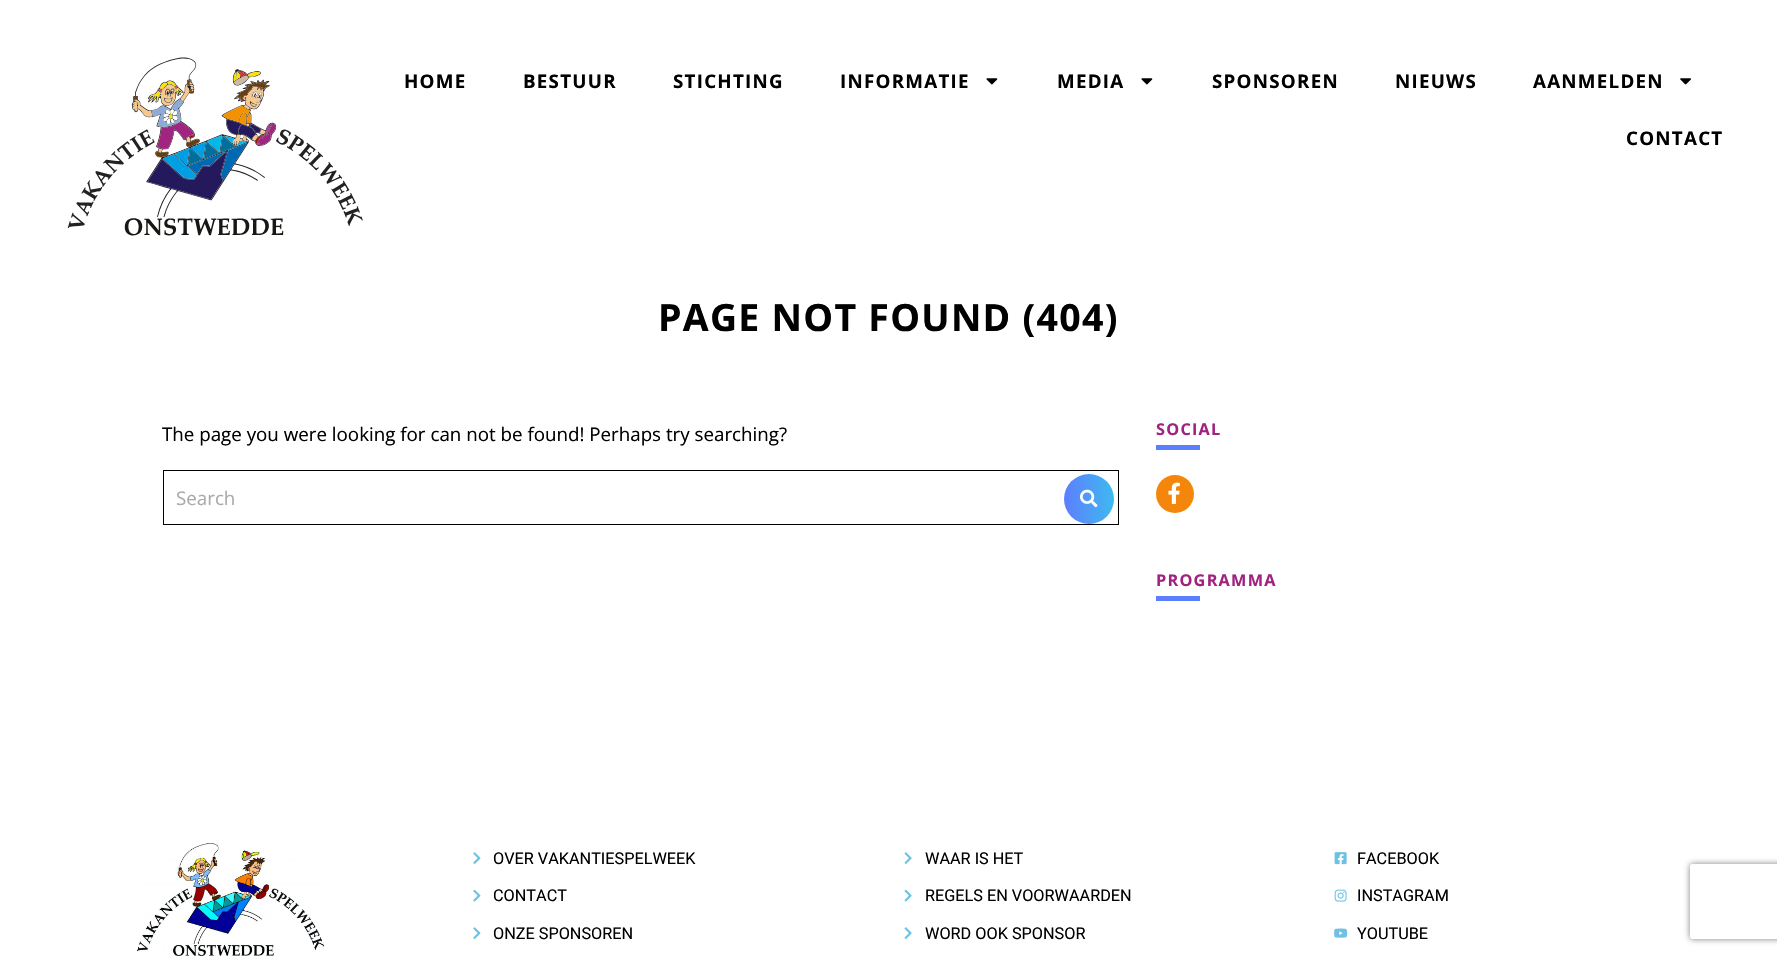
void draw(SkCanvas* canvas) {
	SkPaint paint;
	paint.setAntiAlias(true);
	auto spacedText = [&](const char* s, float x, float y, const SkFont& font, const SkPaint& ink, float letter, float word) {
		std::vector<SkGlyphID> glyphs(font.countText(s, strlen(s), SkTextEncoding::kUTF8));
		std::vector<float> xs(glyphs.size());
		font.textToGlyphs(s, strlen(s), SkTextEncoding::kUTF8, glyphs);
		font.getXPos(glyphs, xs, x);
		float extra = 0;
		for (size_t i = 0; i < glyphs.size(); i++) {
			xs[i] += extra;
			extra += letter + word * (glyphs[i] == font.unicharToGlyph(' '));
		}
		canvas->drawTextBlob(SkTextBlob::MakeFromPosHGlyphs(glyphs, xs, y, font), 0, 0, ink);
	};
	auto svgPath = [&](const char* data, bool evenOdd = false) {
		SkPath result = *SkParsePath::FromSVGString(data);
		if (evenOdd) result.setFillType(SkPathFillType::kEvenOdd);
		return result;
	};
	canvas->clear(0xffffffff);
	canvas->drawImageRect(SkImages::DeferredFromEncodedData(SkData::MakeFromFileName("img1.png")), SkRect::MakeXYWH(67, 57, 296, 179), SkSamplingOptions());
	SkFont f1(fontMgr->matchFamilyStyle("Open Sans", SkFontStyle::Bold()), 18.75);
	f1.setSubpixel(true);
	paint.setColor(0xff000000);
	spacedText("HOME", 404, 88, f1, paint, 1.25, 0);
	spacedText("BESTUUR", 523, 88, f1, paint, 1.25, 0);
	spacedText("STICHTING", 673, 88, f1, paint, 1.25, 0);
	spacedText("INFORMATIE", 840, 88, f1, paint, 1.25, 0);
	canvas->drawImageRect(SkImages::DeferredFromEncodedData(SkData::MakeFromFileName("img2.png")), SkRect::MakeXYWH(986, 78, 12, 7), SkSamplingOptions());
	spacedText("MEDIA", 1057, 88, f1, paint, 1.25, 0);
	canvas->drawImageRect(SkImages::DeferredFromEncodedData(SkData::MakeFromFileName("img2.png")), SkRect::MakeXYWH(1141, 78, 12, 7), SkSamplingOptions());
	spacedText("SPONSOREN", 1212, 88, f1, paint, 1.25, 0);
	spacedText("NIEUWS", 1395, 88, f1, paint, 1.25, 0);
	spacedText("AANMELDEN", 1533, 88, f1, paint, 1.25, 0);
	canvas->drawImageRect(SkImages::DeferredFromEncodedData(SkData::MakeFromFileName("img3.png")), SkRect::MakeXYWH(1680, 78, 11, 7), SkSamplingOptions());
	spacedText("CONTACT", 1626, 145, f1, paint, 1.25, 0);
	SkFont f2(fontMgr->matchFamilyStyle("Open Sans", SkFontStyle::Bold()), 37.5);
	f2.setSubpixel(true);
	spacedText("PAGE NOT FOUND (404)", 658, 331, f2, paint, 1.25, 0);
	SkFont f3(fontMgr->matchFamilyStyle("Open Sans", SkFontStyle::Normal()), 18.75);
	f3.setSubpixel(true);
	canvas->drawString("The page you were looking for can not be found! Perhaps try searching?", 162, 441, f3, paint);
	paint.setStroke(true);
	paint.setStrokeWidth(1);
	canvas->drawRect(SkRect::MakeXYWH(163.5, 470.5, 955, 54), paint);
	paint.setStroke(false);
	paint.setColor(0xffaaaaaa);
	canvas->drawString("Search", 176, 505, f3, paint);
	{
		const SkColor colors[] = {0xff5d7eff, 0xff3ebaef};
		const float stops[] = {0, 1};
		const SkPoint ends[] = {{1064, 499}, {1114, 499}};
		paint.setShader(SkGradientShader::MakeLinear(ends, colors, stops, 2, SkTileMode::kClamp));
		paint.setAlpha(255);
	}
	canvas->drawCircle(1089, 499, 25, paint);
	canvas->drawImageRect(SkImages::DeferredFromEncodedData(SkData::MakeFromFileName("img4.png")), SkRect::MakeXYWH(1080, 489, 18, 19), SkSamplingOptions());
	SkFont f4(fontMgr->matchFamilyStyle("Open Sans", SkFontStyle::Bold()), 16.25);
	f4.setSubpixel(true);
	paint.setShader(nullptr);
	paint.setColor(0xffa0237f);
	spacedText("SOCIAL", 1156, 435, f4, paint, 1.25, 0);
	paint.setColor(0xff5d7eff);
	canvas->drawRect(SkRect::MakeXYWH(1156, 445, 44, 5), paint);
	paint.setColor(0xfff3860b);
	canvas->drawCircle(1175, 494, 19, paint);
	canvas->drawImageRect(SkImages::DeferredFromEncodedData(SkData::MakeFromFileName("img5.png")), SkRect::MakeXYWH(1168, 482, 12, 22), SkSamplingOptions());
	paint.setColor(0xffa0237f);
	spacedText("PROGRAMMA", 1156, 586, f4, paint, 1.25, 0);
	paint.setColor(0xff5d7eff);
	canvas->drawRect(SkRect::MakeXYWH(1156, 596, 44, 5), paint);
	canvas->drawImageRect(SkImages::DeferredFromEncodedData(SkData::MakeFromFileName("img6.png")), SkRect::MakeXYWH(137, 843, 188, 113), SkSamplingOptions());
	canvas->drawImageRect(SkImages::DeferredFromEncodedData(SkData::MakeFromFileName("img7.png")), SkRect::MakeXYWH(473, 852, 8, 12), SkSamplingOptions());
	SkFont f5(fontMgr->matchFamilyStyle("Roboto", SkFontStyle::Normal()), 16.25);
	f5.setSubpixel(true);
	paint.setColor(0xff000000);
	canvas->drawString("OVER VAKANTIESPELWEEK", 493, 864, f5, paint);
	canvas->drawImageRect(SkImages::DeferredFromEncodedData(SkData::MakeFromFileName("img8.png")), SkRect::MakeXYWH(473, 889, 8, 13), SkSamplingOptions());
	canvas->drawString("CONTACT", 493, 901, f5, paint);
	canvas->drawImageRect(SkImages::DeferredFromEncodedData(SkData::MakeFromFileName("img7.png")), SkRect::MakeXYWH(473, 927, 8, 12), SkSamplingOptions());
	canvas->drawString("ONZE SPONSOREN", 493, 939, f5, paint);
	canvas->drawImageRect(SkImages::DeferredFromEncodedData(SkData::MakeFromFileName("img9.png")), SkRect::MakeXYWH(904, 852, 8, 12), SkSamplingOptions());
	canvas->drawString("WAAR IS HET", 925, 864, f5, paint);
	canvas->drawImageRect(SkImages::DeferredFromEncodedData(SkData::MakeFromFileName("img10.png")), SkRect::MakeXYWH(904, 889, 8, 13), SkSamplingOptions());
	canvas->drawString("REGELS EN VOORWAARDEN", 925, 901, f5, paint);
	canvas->drawImageRect(SkImages::DeferredFromEncodedData(SkData::MakeFromFileName("img9.png")), SkRect::MakeXYWH(904, 927, 8, 12), SkSamplingOptions());
	canvas->drawString("WORD OOK SPONSOR", 925, 939, f5, paint);
	canvas->drawImageRect(SkImages::DeferredFromEncodedData(SkData::MakeFromFileName("img11.png")), SkRect::MakeXYWH(1334, 852, 13, 13), SkSamplingOptions());
	canvas->drawString("FACEBOOK", 1357, 864, f5, paint);
	canvas->drawImageRect(SkImages::DeferredFromEncodedData(SkData::MakeFromFileName("img12.png")), SkRect::MakeXYWH(1334, 889, 13, 13), SkSamplingOptions());
	canvas->drawString("INSTAGRAM", 1357, 901, f5, paint);
	canvas->drawImageRect(SkImages::DeferredFromEncodedData(SkData::MakeFromFileName("img13.png")), SkRect::MakeXYWH(1334, 928, 14, 10), SkSamplingOptions());
	canvas->drawString("YOUTUBE", 1357, 939, f5, paint);
	canvas->save();
	canvas->clipPath(svgPath("M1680 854H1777V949H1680ZM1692.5 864H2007.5C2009 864 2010 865 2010 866.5V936.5C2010 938 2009 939 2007.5 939H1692.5C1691 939 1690 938 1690 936.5V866.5C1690 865 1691 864 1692.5 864Z", true), true);
	paint.setColor(0xff808080);
	paint.setMaskFilter(SkMaskFilter::MakeBlur(kNormal_SkBlurStyle, 3));
	canvas->drawRoundRect(SkRect::MakeXYWH(1690, 864, 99, 75), 2.5, 2.5, paint);
	paint.setMaskFilter(nullptr);
	canvas->restore();
}
